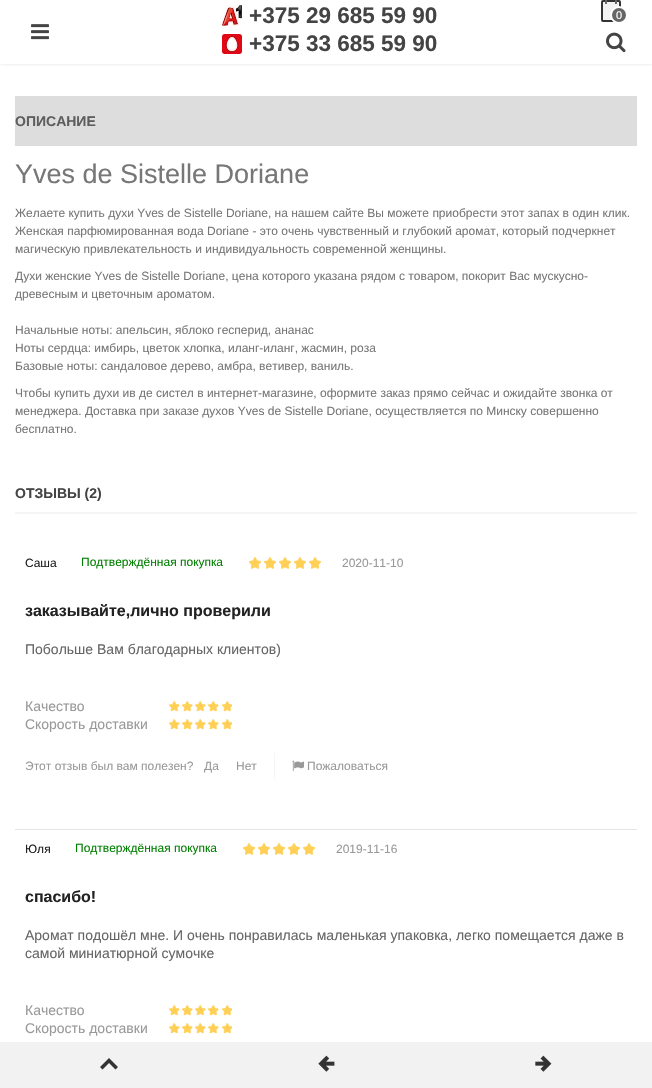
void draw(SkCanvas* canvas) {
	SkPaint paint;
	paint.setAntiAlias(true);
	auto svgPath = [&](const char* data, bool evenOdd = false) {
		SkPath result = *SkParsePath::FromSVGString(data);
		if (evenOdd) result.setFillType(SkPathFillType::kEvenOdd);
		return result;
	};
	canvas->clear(0xffffffff);
	canvas->save();
	canvas->clipRect(SkRect::MakeXYWH(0, 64, 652, 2));
	paint.setColor(0x1a000000);
	paint.setMaskFilter(SkMaskFilter::MakeBlur(kNormal_SkBlurStyle, 2));
	canvas->drawRect(SkRect::MakeXYWH(0, 0, 652, 64), paint);
	paint.setMaskFilter(nullptr);
	canvas->restore();
	canvas->drawImageRect(SkImages::DeferredFromEncodedData(SkData::MakeFromFileName("img1.png")), SkRect::MakeXYWH(222, 5, 20, 21), SkSamplingOptions());
	SkFont f1(fontMgr->matchFamilyStyle("Liberation Sans", SkFontStyle::Bold()), 22.5);
	f1.setSubpixel(true);
	paint.setColor(0xff444444);
	canvas->drawString("+375 29 685 59 90", 249, 23, f1, paint);
	canvas->drawImageRect(SkImages::DeferredFromEncodedData(SkData::MakeFromFileName("img2.png")), SkRect::MakeXYWH(222, 34, 20, 20), SkSamplingOptions());
	canvas->drawString("+375 33 685 59 90", 249, 51, f1, paint);
	paint.setColor(0xfff2f2f2);
	canvas->drawRoundRect(SkRect::MakeXYWH(602, 1, 18, 20), 1, 1, paint);
	paint.setStroke(true);
	paint.setStrokeWidth(2);
	paint.setColor(0xff333333);
	canvas->drawRoundRect(SkRect::MakeXYWH(602, 1, 18, 20), 1, 1, paint);
	paint.setStroke(false);
	paint.setColor(0xff666666);
	canvas->drawPath(svgPath("M611-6C617-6 617-.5 617 4H605C605-.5 605-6 611-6ZM611-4C615.5-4 615 1 615 4H607C607 1 606.5-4 611-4Z", true), paint);
	canvas->drawCircle(619, 15, 8, paint);
	paint.setStroke(true);
	paint.setColor(0xffffffff);
	canvas->drawCircle(619, 15, 8, paint);
	SkFont f2(fontMgr->matchFamilyStyle("Liberation Sans", SkFontStyle::Normal()), 11);
	f2.setSubpixel(true);
	paint.setStroke(false);
	canvas->drawString("0", 616, 19, f2, paint);
	canvas->drawImageRect(SkImages::DeferredFromEncodedData(SkData::MakeFromFileName("img3.png")), SkRect::MakeXYWH(606, 32, 20, 21), SkSamplingOptions());
	canvas->drawImageRect(SkImages::DeferredFromEncodedData(SkData::MakeFromFileName("img4.png")), SkRect::MakeXYWH(31, 24, 18, 16), SkSamplingOptions());
	paint.setColor(0xffdddddd);
	canvas->drawRect(SkRect::MakeXYWH(15, 96, 622, 50), paint);
	SkFont f3(fontMgr->matchFamilyStyle("Liberation Sans", SkFontStyle::Bold()), 14);
	f3.setSubpixel(true);
	paint.setColor(0xff5d5d5d);
	canvas->drawString("ОПИСАНИЕ", 15, 126, f3, paint);
	SkFont f4(fontMgr->matchFamilyStyle("Liberation Sans", SkFontStyle::Normal()), 27);
	f4.setSubpixel(true);
	paint.setColor(0xff777777);
	canvas->drawString("Yves de Sistelle Doriane", 15, 183, f4, paint);
	SkFont f5(fontMgr->matchFamilyStyle("Liberation Sans", SkFontStyle::Normal()), 12);
	f5.setSubpixel(true);
	canvas->drawString("Желаете купить духи Yves de Sistelle Doriane, на нашем сайте Вы можете приобрести этот запах в один клик.", 15, 217, f5, paint);
	canvas->drawString("Женская парфюмированная вода Doriane - это очень чувственный и глубокий аромат, который подчеркнет", 15, 235, f5, paint);
	canvas->drawString("магическую привлекательность и индивидуальность современной женщины.", 15, 253, f5, paint);
	canvas->drawString("Духи женские Yves de Sistelle Doriane, цена которого указана рядом с товаром, покорит Вас мускусно-", 15, 280, f5, paint);
	canvas->drawString("древесным и цветочным ароматом.", 15, 298, f5, paint);
	canvas->drawString("Начальные ноты: апельсин, яблоко гесперид, ананас", 15, 334, f5, paint);
	canvas->drawString("Ноты сердца: имбирь, цветок хлопка, иланг-иланг, жасмин, роза", 15, 352, f5, paint);
	canvas->drawString("Базовые ноты: сандаловое дерево, амбра, ветивер, ваниль.", 15, 370, f5, paint);
	canvas->drawString("Чтобы купить духи ив де систел в интернет-магазине, оформите заказ прямо сейчас и ожидайте звонка от", 15, 397, f5, paint);
	canvas->drawString("менеджера. Доставка при заказе духов Yves de Sistelle Doriane, осуществляется по Минску совершенно", 15, 415, f5, paint);
	canvas->drawString("бесплатно.", 15, 433, f5, paint);
	paint.setColor(0xfff4f5f6);
	canvas->drawRect(SkRect::MakeXYWH(15, 512, 622, 2), paint);
	paint.setColor(0xff444444);
	canvas->drawString("ОТЗЫВЫ (2)", 15, 498, f3, paint);
	paint.setColor(0xff222222);
	canvas->drawString("Саша", 25, 567, f5, paint);
	paint.setColor(0xff008000);
	canvas->drawString("Подтверждённая покупка", 81, 566, f5, paint);
	canvas->drawImageRect(SkImages::DeferredFromEncodedData(SkData::MakeFromFileName("img5.png")), SkRect::MakeXYWH(249, 557, 12, 12), SkSamplingOptions());
	canvas->drawImageRect(SkImages::DeferredFromEncodedData(SkData::MakeFromFileName("img5.png")), SkRect::MakeXYWH(264, 557, 12, 12), SkSamplingOptions());
	canvas->drawImageRect(SkImages::DeferredFromEncodedData(SkData::MakeFromFileName("img5.png")), SkRect::MakeXYWH(279, 557, 12, 12), SkSamplingOptions());
	canvas->drawImageRect(SkImages::DeferredFromEncodedData(SkData::MakeFromFileName("img5.png")), SkRect::MakeXYWH(294, 557, 12, 12), SkSamplingOptions());
	canvas->drawImageRect(SkImages::DeferredFromEncodedData(SkData::MakeFromFileName("img5.png")), SkRect::MakeXYWH(309, 557, 12, 12), SkSamplingOptions());
	paint.setColor(0xff999999);
	canvas->drawString("2020-11-10", 342, 567, f5, paint);
	SkFont f6(fontMgr->matchFamilyStyle("Liberation Sans", SkFontStyle::Bold()), 16);
	f6.setSubpixel(true);
	paint.setColor(0xff222222);
	canvas->drawString("заказывайте,лично проверили", 25, 616, f6, paint);
	SkFont f7(fontMgr->matchFamilyStyle("Liberation Sans", SkFontStyle::Normal()), 14);
	f7.setSubpixel(true);
	paint.setColor(0xff666666);
	canvas->drawString("Побольше Вам благодарных клиентов)", 25, 654, f7, paint);
	paint.setColor(0xff999999);
	canvas->drawString("Качество", 25, 711, f7, paint);
	canvas->drawImageRect(SkImages::DeferredFromEncodedData(SkData::MakeFromFileName("img6.png")), SkRect::MakeXYWH(169, 701, 11, 11), SkSamplingOptions());
	canvas->drawImageRect(SkImages::DeferredFromEncodedData(SkData::MakeFromFileName("img6.png")), SkRect::MakeXYWH(182, 701, 11, 11), SkSamplingOptions());
	canvas->drawImageRect(SkImages::DeferredFromEncodedData(SkData::MakeFromFileName("img6.png")), SkRect::MakeXYWH(195, 701, 11, 11), SkSamplingOptions());
	canvas->drawImageRect(SkImages::DeferredFromEncodedData(SkData::MakeFromFileName("img6.png")), SkRect::MakeXYWH(208, 701, 11, 11), SkSamplingOptions());
	canvas->drawImageRect(SkImages::DeferredFromEncodedData(SkData::MakeFromFileName("img7.png")), SkRect::MakeXYWH(222, 701, 10, 11), SkSamplingOptions());
	canvas->drawString("Скорость доставки", 25, 729, f7, paint);
	canvas->drawImageRect(SkImages::DeferredFromEncodedData(SkData::MakeFromFileName("img6.png")), SkRect::MakeXYWH(169, 719, 11, 11), SkSamplingOptions());
	canvas->drawImageRect(SkImages::DeferredFromEncodedData(SkData::MakeFromFileName("img6.png")), SkRect::MakeXYWH(182, 719, 11, 11), SkSamplingOptions());
	canvas->drawImageRect(SkImages::DeferredFromEncodedData(SkData::MakeFromFileName("img6.png")), SkRect::MakeXYWH(195, 719, 11, 11), SkSamplingOptions());
	canvas->drawImageRect(SkImages::DeferredFromEncodedData(SkData::MakeFromFileName("img6.png")), SkRect::MakeXYWH(208, 719, 11, 11), SkSamplingOptions());
	canvas->drawImageRect(SkImages::DeferredFromEncodedData(SkData::MakeFromFileName("img7.png")), SkRect::MakeXYWH(222, 719, 10, 11), SkSamplingOptions());
	paint.setColor(0xfff5f5f5);
	canvas->drawRect(SkRect::MakeXYWH(274, 753, 1, 26), paint);
	paint.setColor(0xff999999);
	canvas->drawString("Этот отзыв был вам полезен?", 25, 770, f5, paint);
	canvas->drawString("Да", 204, 770, f5, paint);
	canvas->drawString("Нет", 236, 770, f5, paint);
	canvas->drawImageRect(SkImages::DeferredFromEncodedData(SkData::MakeFromFileName("img8.png")), SkRect::MakeXYWH(292, 760, 12, 11), SkSamplingOptions());
	canvas->drawString("Пожаловаться", 307, 770, f5, paint);
	paint.setColor(0xffe5e5e5);
	canvas->drawRect(SkRect::MakeXYWH(15, 829, 622, 1), paint);
	paint.setColor(0xff222222);
	canvas->drawString("Юля", 25, 853, f5, paint);
	paint.setColor(0xff008000);
	canvas->drawString("Подтверждённая покупка", 75, 852, f5, paint);
	canvas->drawImageRect(SkImages::DeferredFromEncodedData(SkData::MakeFromFileName("img5.png")), SkRect::MakeXYWH(243, 843, 12, 12), SkSamplingOptions());
	canvas->drawImageRect(SkImages::DeferredFromEncodedData(SkData::MakeFromFileName("img5.png")), SkRect::MakeXYWH(258, 843, 12, 12), SkSamplingOptions());
	canvas->drawImageRect(SkImages::DeferredFromEncodedData(SkData::MakeFromFileName("img5.png")), SkRect::MakeXYWH(273, 843, 12, 12), SkSamplingOptions());
	canvas->drawImageRect(SkImages::DeferredFromEncodedData(SkData::MakeFromFileName("img5.png")), SkRect::MakeXYWH(288, 843, 12, 12), SkSamplingOptions());
	canvas->drawImageRect(SkImages::DeferredFromEncodedData(SkData::MakeFromFileName("img5.png")), SkRect::MakeXYWH(303, 843, 12, 12), SkSamplingOptions());
	paint.setColor(0xff999999);
	canvas->drawString("2019-11-16", 336, 853, f5, paint);
	paint.setColor(0xff222222);
	canvas->drawString("спасибо!", 25, 902, f6, paint);
	paint.setColor(0xff666666);
	canvas->drawString("Аромат подошёл мне. И очень понравилась маленькая упаковка, легко помещается даже в", 25, 940, f7, paint);
	canvas->drawString("самой миниатюрной сумочке", 25, 958, f7, paint);
	paint.setColor(0xff999999);
	canvas->drawString("Качество", 25, 1015, f7, paint);
	canvas->drawImageRect(SkImages::DeferredFromEncodedData(SkData::MakeFromFileName("img6.png")), SkRect::MakeXYWH(169, 1005, 11, 11), SkSamplingOptions());
	canvas->drawImageRect(SkImages::DeferredFromEncodedData(SkData::MakeFromFileName("img6.png")), SkRect::MakeXYWH(182, 1005, 11, 11), SkSamplingOptions());
	canvas->drawImageRect(SkImages::DeferredFromEncodedData(SkData::MakeFromFileName("img6.png")), SkRect::MakeXYWH(195, 1005, 11, 11), SkSamplingOptions());
	canvas->drawImageRect(SkImages::DeferredFromEncodedData(SkData::MakeFromFileName("img6.png")), SkRect::MakeXYWH(208, 1005, 11, 11), SkSamplingOptions());
	canvas->drawImageRect(SkImages::DeferredFromEncodedData(SkData::MakeFromFileName("img7.png")), SkRect::MakeXYWH(222, 1005, 10, 11), SkSamplingOptions());
	canvas->drawString("Скорость доставки", 25, 1033, f7, paint);
	canvas->drawImageRect(SkImages::DeferredFromEncodedData(SkData::MakeFromFileName("img6.png")), SkRect::MakeXYWH(169, 1023, 11, 11), SkSamplingOptions());
	canvas->drawImageRect(SkImages::DeferredFromEncodedData(SkData::MakeFromFileName("img6.png")), SkRect::MakeXYWH(182, 1023, 11, 11), SkSamplingOptions());
	canvas->drawImageRect(SkImages::DeferredFromEncodedData(SkData::MakeFromFileName("img6.png")), SkRect::MakeXYWH(195, 1023, 11, 11), SkSamplingOptions());
	canvas->drawImageRect(SkImages::DeferredFromEncodedData(SkData::MakeFromFileName("img6.png")), SkRect::MakeXYWH(208, 1023, 11, 11), SkSamplingOptions());
	canvas->drawImageRect(SkImages::DeferredFromEncodedData(SkData::MakeFromFileName("img7.png")), SkRect::MakeXYWH(222, 1023, 10, 11), SkSamplingOptions());
	paint.setColor(0xfff2f2f2);
	canvas->drawRect(SkRect::MakeXYWH(0, 1042, 652, 46), paint);
	paint.setColor(0xff333333);
	canvas->drawPath(svgPath("M100 1067L109 1058L118 1067L115.5 1069.5L109 1063L102.5 1069.5Z"), paint);
	canvas->drawImageRect(SkImages::DeferredFromEncodedData(SkData::MakeFromFileName("img9.png")), SkRect::MakeXYWH(318, 1055, 17, 17), SkSamplingOptions());
	canvas->drawImageRect(SkImages::DeferredFromEncodedData(SkData::MakeFromFileName("img10.png")), SkRect::MakeXYWH(535, 1055, 17, 17), SkSamplingOptions());
}
